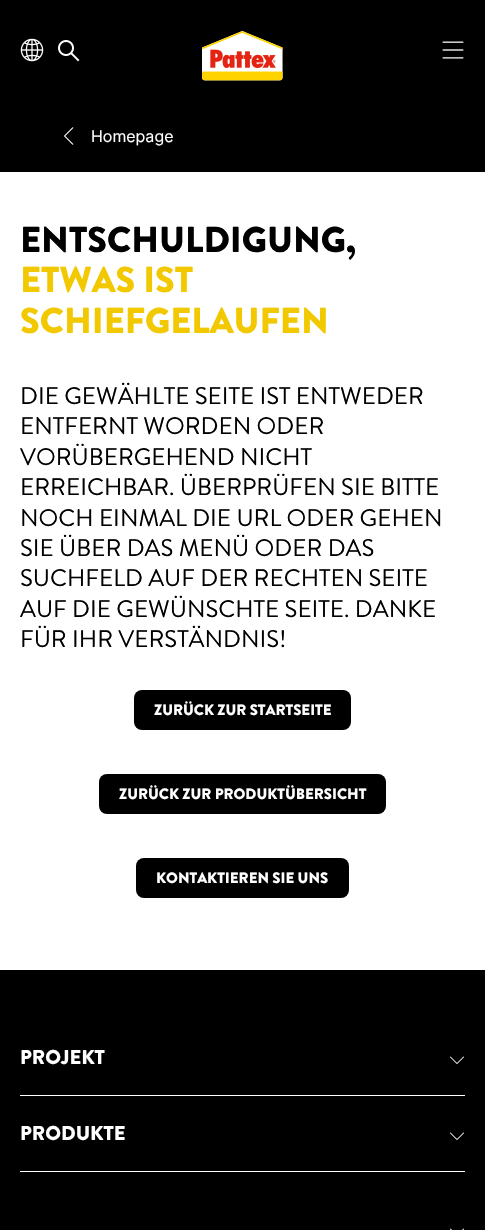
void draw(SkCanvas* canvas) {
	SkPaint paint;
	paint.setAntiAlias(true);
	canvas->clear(0xff000000);
	canvas->drawImageRect(SkImages::DeferredFromEncodedData(SkData::MakeFromFileName("img1.png")), SkRect::MakeXYWH(20, 38, 24, 24), SkSamplingOptions());
	canvas->drawImageRect(SkImages::DeferredFromEncodedData(SkData::MakeFromFileName("img2.png")), SkRect::MakeXYWH(58, 40, 22, 22), SkSamplingOptions());
	canvas->drawImageRect(SkImages::DeferredFromEncodedData(SkData::MakeFromFileName("img3.png")), SkRect::MakeXYWH(202, 31, 81, 50), SkSamplingOptions());
	canvas->drawImageRect(SkImages::DeferredFromEncodedData(SkData::MakeFromFileName("img4.png")), SkRect::MakeXYWH(442, 41, 22, 18), SkSamplingOptions());
	canvas->drawImageRect(SkImages::DeferredFromEncodedData(SkData::MakeFromFileName("img5.png")), SkRect::MakeXYWH(64, 127, 10, 18), SkSamplingOptions());
	SkFont f1(fontMgr->matchFamilyStyle("Inter", SkFontStyle::Normal()), 16);
	f1.setSubpixel(true);
	paint.setColor(0xffffffff);
	canvas->drawString("Homepage", 91, 142, f1, paint);
	canvas->drawRect(SkRect::MakeXYWH(0, 172, 485, 798), paint);
	SkFont f2(fontMgr->matchFamilyStyle("Brandon Grotesque", SkFontStyle(900, SkFontStyle::kNormal_Width, SkFontStyle::kUpright_Slant)), 36);
	f2.setSubpixel(true);
	paint.setColor(0xff000000);
	canvas->drawString("ENTSCHULDIGUNG,", 20, 252, f2, paint);
	paint.setColor(0xfff2c800);
	canvas->drawString("ETWAS IST", 20, 292, f2, paint);
	canvas->drawString("SCHIEFGELAUFEN", 20, 333, f2, paint);
	SkFont f3(fontMgr->matchFamilyStyle("Brandon Grotesque", SkFontStyle::Normal()), 24);
	f3.setSubpixel(true);
	paint.setColor(0xff000000);
	canvas->drawString("DIE GEWÄHLTE SEITE IST ENTWEDER", 20, 404, f3, paint);
	canvas->drawString("ENTFERNT WORDEN ODER", 20, 434, f3, paint);
	canvas->drawString("VORÜBERGEHEND NICHT", 20, 465, f3, paint);
	canvas->drawString("ERREICHBAR. ÜBERPRÜFEN SIE BITTE", 20, 495, f3, paint);
	canvas->drawString("NOCH EINMAL DIE URL ODER GEHEN", 20, 526, f3, paint);
	canvas->drawString("SIE ÜBER DAS MENÜ ODER DAS", 20, 556, f3, paint);
	canvas->drawString("SUCHFELD AUF DER RECHTEN SEITE", 20, 586, f3, paint);
	canvas->drawString("AUF DIE GEWÜNSCHTE SEITE. DANKE", 20, 617, f3, paint);
	canvas->drawString("FÜR IHR VERSTÄNDNIS!", 20, 647, f3, paint);
	canvas->drawRoundRect(SkRect::MakeXYWH(134, 690, 217, 40), 8, 8, paint);
	SkFont f4(fontMgr->matchFamilyStyle("Brandon Grotesque", SkFontStyle(900, SkFontStyle::kNormal_Width, SkFontStyle::kUpright_Slant)), 15);
	f4.setSubpixel(true);
	paint.setColor(0xffffffff);
	canvas->drawString("ZURÜCK ZUR STARTSEITE", 154, 715, f4, paint);
	paint.setColor(0xff000000);
	canvas->drawRoundRect(SkRect::MakeXYWH(99, 774, 287, 40), 8, 8, paint);
	paint.setColor(0xffffffff);
	canvas->drawString("ZURÜCK ZUR PRODUKTÜBERSICHT", 119, 799, f4, paint);
	paint.setColor(0xff000000);
	canvas->drawRoundRect(SkRect::MakeXYWH(136, 858, 213, 40), 8, 8, paint);
	paint.setColor(0xffffffff);
	canvas->drawString("KONTAKTIEREN SIE UNS", 156, 883, f4, paint);
	canvas->drawRect(SkRect::MakeXYWH(20, 1095, 445, 1), paint);
	SkFont f5(fontMgr->matchFamilyStyle("Brandon Grotesque", SkFontStyle(900, SkFontStyle::kNormal_Width, SkFontStyle::kUpright_Slant)), 20);
	f5.setSubpixel(true);
	canvas->drawString("PROJEKT", 20, 1064, f5, paint);
	canvas->drawImageRect(SkImages::DeferredFromEncodedData(SkData::MakeFromFileName("img6.png")), SkRect::MakeXYWH(450, 1056, 14, 8), SkSamplingOptions());
	canvas->drawRect(SkRect::MakeXYWH(20, 1171, 445, 1), paint);
	canvas->drawString("PRODUKTE", 20, 1140, f5, paint);
	canvas->drawImageRect(SkImages::DeferredFromEncodedData(SkData::MakeFromFileName("img6.png")), SkRect::MakeXYWH(450, 1132, 14, 8), SkSamplingOptions());
	canvas->drawImageRect(SkImages::DeferredFromEncodedData(SkData::MakeFromFileName("img7.png")), SkRect::MakeXYWH(450, 1228, 14, 2), SkSamplingOptions());
}
